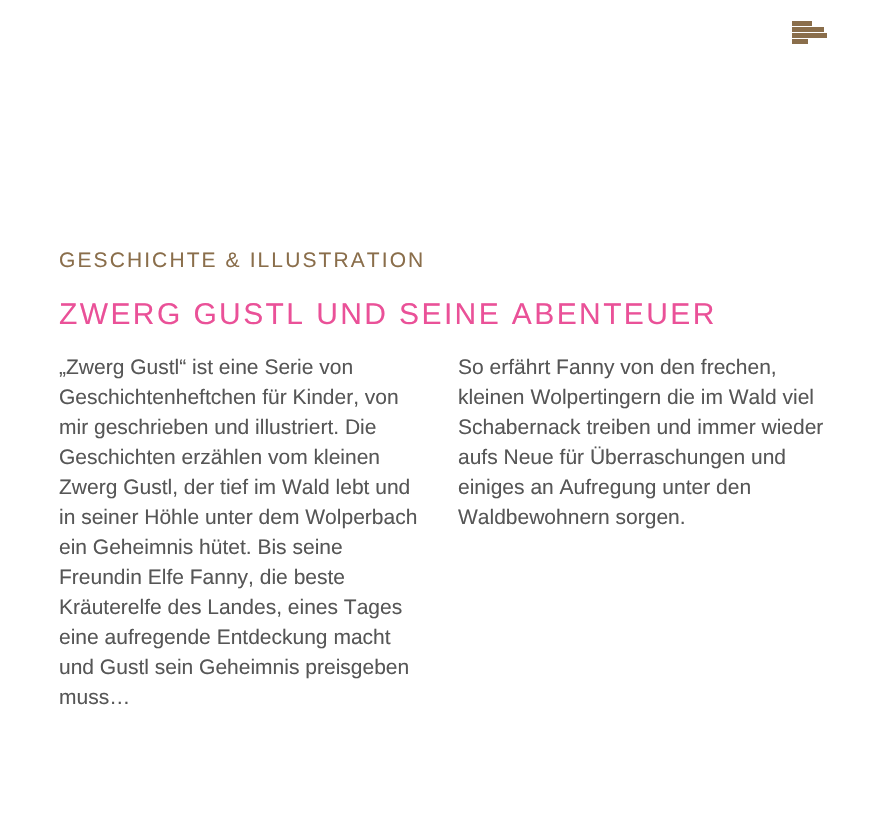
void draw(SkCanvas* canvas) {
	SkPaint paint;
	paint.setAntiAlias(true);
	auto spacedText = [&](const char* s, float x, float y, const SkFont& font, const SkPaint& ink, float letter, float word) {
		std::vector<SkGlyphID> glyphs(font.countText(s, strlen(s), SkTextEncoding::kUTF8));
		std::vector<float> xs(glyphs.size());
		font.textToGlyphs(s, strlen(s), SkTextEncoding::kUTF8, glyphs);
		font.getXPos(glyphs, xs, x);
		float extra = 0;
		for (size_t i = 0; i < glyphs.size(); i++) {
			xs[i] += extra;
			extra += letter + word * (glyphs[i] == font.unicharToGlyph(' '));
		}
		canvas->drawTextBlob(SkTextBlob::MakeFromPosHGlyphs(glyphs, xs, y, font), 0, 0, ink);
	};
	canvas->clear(0xffffffff);
	paint.setColor(0xff8a6e4b);
	canvas->drawRect(SkRect::MakeXYWH(792, 21, 20, 5), paint);
	canvas->drawRect(SkRect::MakeXYWH(792, 27, 32, 5), paint);
	canvas->drawRect(SkRect::MakeXYWH(792, 33, 35, 5), paint);
	canvas->drawRect(SkRect::MakeXYWH(792, 39, 16, 5), paint);
	SkFont f1(fontMgr->matchFamilyStyle("Liberation Sans", SkFontStyle::Normal()), 21);
	f1.setSubpixel(true);
	spacedText("GESCHICHTE & ILLUSTRATION", 59, 267, f1, paint, 2.1, 0);
	SkFont f2(fontMgr->matchFamilyStyle("Liberation Sans", SkFontStyle::Normal()), 30);
	f2.setSubpixel(true);
	paint.setColor(0xffea5198);
	spacedText("ZWERG GUSTL UND SEINE ABENTEUER", 59, 324, f2, paint, 2.4, 0);
	paint.setColor(0xff565656);
	canvas->drawString("„Zwerg Gustl“ ist eine Serie von", 59, 374, f1, paint);
	canvas->drawString("Geschichtenheftchen für Kinder, von", 59, 404, f1, paint);
	canvas->drawString("mir geschrieben und illustriert. Die", 59, 434, f1, paint);
	canvas->drawString("Geschichten erzählen vom kleinen", 59, 464, f1, paint);
	canvas->drawString("Zwerg Gustl, der tief im Wald lebt und", 59, 494, f1, paint);
	canvas->drawString("in seiner Höhle unter dem Wolperbach", 59, 524, f1, paint);
	canvas->drawString("ein Geheimnis hütet. Bis seine", 59, 554, f1, paint);
	canvas->drawString("Freundin Elfe Fanny, die beste", 59, 584, f1, paint);
	canvas->drawString("Kräuterelfe des Landes, eines Tages", 59, 614, f1, paint);
	canvas->drawString("eine aufregende Entdeckung macht", 59, 644, f1, paint);
	canvas->drawString("und Gustl sein Geheimnis preisgeben", 59, 674, f1, paint);
	canvas->drawString("muss…", 59, 704, f1, paint);
	canvas->drawString("So erfährt Fanny von den frechen,", 458, 374, f1, paint);
	canvas->drawString("kleinen Wolpertingern die im Wald viel", 458, 404, f1, paint);
	canvas->drawString("Schabernack treiben und immer wieder", 458, 434, f1, paint);
	canvas->drawString("aufs Neue für Überraschungen und", 458, 464, f1, paint);
	canvas->drawString("einiges an Aufregung unter den", 458, 494, f1, paint);
	canvas->drawString("Waldbewohnern sorgen.", 458, 524, f1, paint);
}
